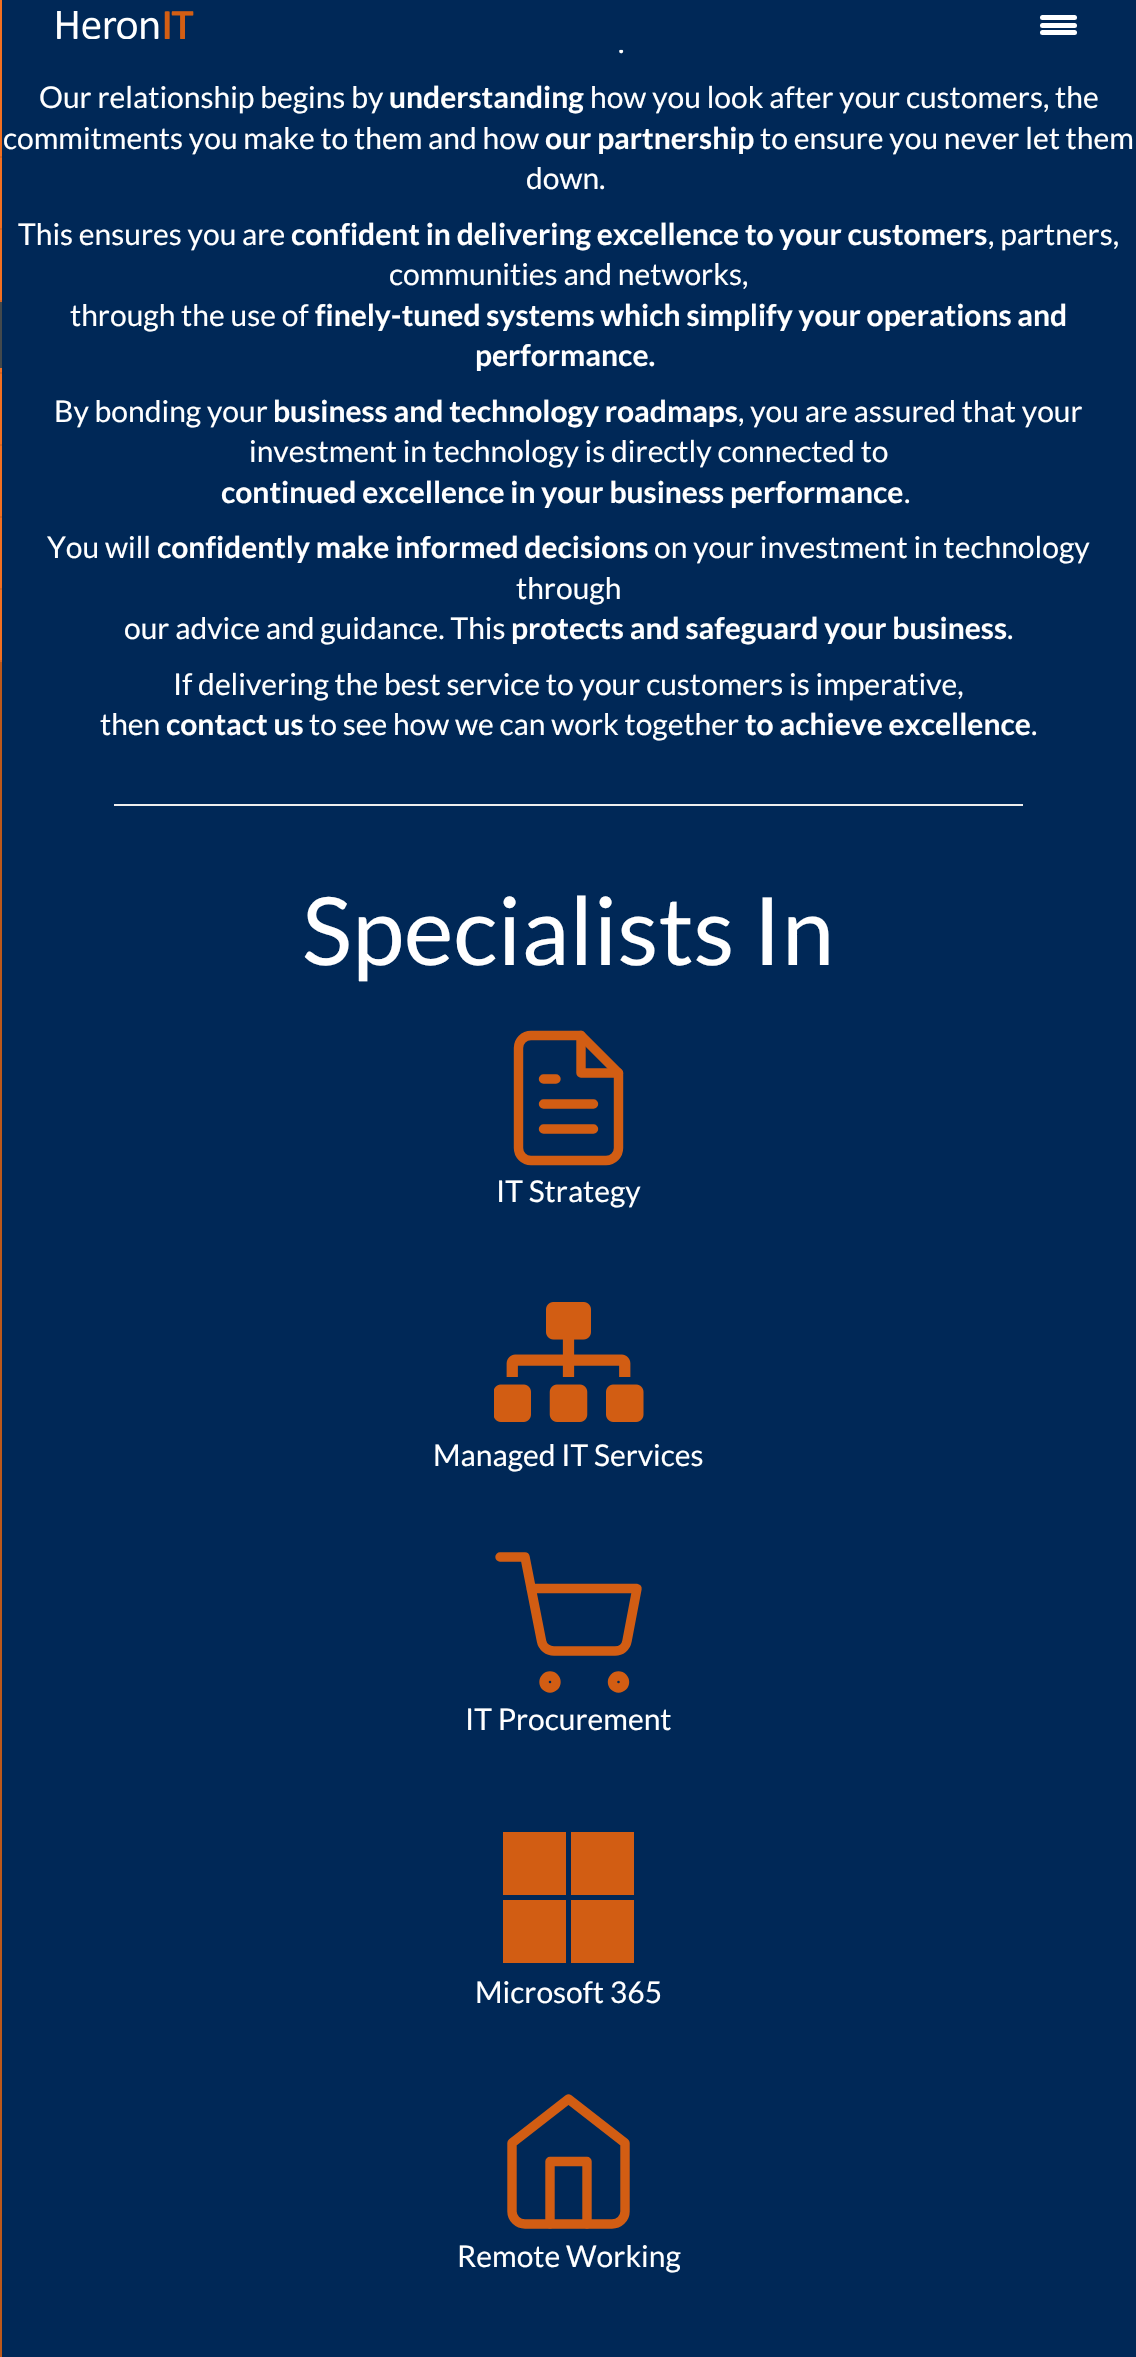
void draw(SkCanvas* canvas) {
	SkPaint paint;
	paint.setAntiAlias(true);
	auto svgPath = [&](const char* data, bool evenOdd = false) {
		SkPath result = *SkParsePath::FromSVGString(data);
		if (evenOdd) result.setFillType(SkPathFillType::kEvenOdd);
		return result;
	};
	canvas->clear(0xff002857);
	SkFont f1(fontMgr->matchFamilyStyle("Lato", SkFontStyle::Normal()), 30);
	f1.setSubpixel(true);
	paint.setColor(0xffffffff);
	canvas->drawString(".", 618, 53, f1, paint);
	paint.setColor(0xd9002857);
	canvas->drawRect(SkRect::MakeXYWH(619, 49, 4, 1), paint);
	paint.setColor(0xffbd581a);
	canvas->drawRect(SkRect::MakeXYWH(0, 662, 2, 1695), paint);
	paint.setColor(0xfff37021);
	canvas->drawRect(SkRect::MakeXYWH(0, 0, 2, 302), paint);
	paint.setColor(0xffdc661f);
	canvas->drawRect(SkRect::MakeXYWH(0, 156, 2, 2), paint);
	canvas->drawRect(SkRect::MakeXYWH(0, 228, 2, 2), paint);
	canvas->drawRect(SkRect::MakeXYWH(0, 300, 2, 2), paint);
	paint.setColor(0xfff37021);
	canvas->drawRect(SkRect::MakeXYWH(0, 368, 2, 294), paint);
	paint.setColor(0xffdc661f);
	canvas->drawRect(SkRect::MakeXYWH(0, 372, 2, 2), paint);
	paint.setColor(0xff43494c);
	canvas->drawRect(SkRect::MakeXYWH(0, 302, 2, 66), paint);
	paint.setColor(0xffdc661f);
	canvas->drawRect(SkRect::MakeXYWH(0, 444, 2, 2), paint);
	canvas->drawRect(SkRect::MakeXYWH(0, 516, 2, 2), paint);
	canvas->drawRect(SkRect::MakeXYWH(0, 588, 2, 2), paint);
	canvas->drawRect(SkRect::MakeXYWH(0, 660, 2, 2), paint);
	canvas->drawImageRect(SkImages::DeferredFromEncodedData(SkData::MakeFromFileName("img1.png")), SkRect::MakeXYWH(57, 11, 137, 28), SkSamplingOptions());
	paint.setColor(0xffffffff);
	canvas->drawRoundRect(SkRect::MakeXYWH(1040, 23, 37, 5), 2.5, 2.5, paint);
	canvas->drawRoundRect(SkRect::MakeXYWH(1040, 15, 37, 5), 2.5, 2.5, paint);
	canvas->drawRoundRect(SkRect::MakeXYWH(1040, 30, 37, 5), 2.5, 2.5, paint);
	canvas->drawString("Our relationship begins by", 39, 108, f1, paint);
	SkFont f2(fontMgr->matchFamilyStyle("Lato", SkFontStyle::Bold()), 30);
	f2.setSubpixel(true);
	canvas->drawString("understanding", 389, 108, f2, paint);
	canvas->drawString("how you look after your customers, the", 590, 108, f1, paint);
	canvas->drawString("commitments you make to them and how", 3, 149, f1, paint);
	canvas->drawString("our partnership", 545, 149, f2, paint);
	canvas->drawString("to ensure you never let them", 760, 149, f1, paint);
	canvas->drawString("down.", 526, 189, f1, paint);
	canvas->drawString("This ensures you are", 18, 245, f1, paint);
	canvas->drawString("confident in delivering excellence to your customers", 291, 245, f2, paint);
	canvas->drawString(", partners,", 988, 245, f1, paint);
	canvas->drawString("communities and networks,", 389, 285, f1, paint);
	canvas->drawString("through the use of", 70, 326, f1, paint);
	canvas->drawString("finely-tuned systems which simplify your operations and", 315, 326, f2, paint);
	canvas->drawString("performance.", 475, 366, f2, paint);
	canvas->drawString("By bonding your", 54, 422, f1, paint);
	canvas->drawString("business and technology roadmaps", 273, 422, f2, paint);
	canvas->drawString(", you are assured that your", 738, 422, f1, paint);
	canvas->drawString("investment in technology is directly connected to", 249, 462, f1, paint);
	canvas->drawString("continued excellence in your business performance", 221, 503, f2, paint);
	canvas->drawString(".", 904, 503, f1, paint);
	canvas->drawString("You will", 47, 558, f1, paint);
	canvas->drawString("confidently make informed decisions", 157, 558, f2, paint);
	canvas->drawString("on your investment in technology", 654, 558, f1, paint);
	canvas->drawString("through", 516, 599, f1, paint);
	canvas->drawString("our advice and guidance. This", 124, 639, f1, paint);
	canvas->drawString("protects and safeguard your business", 511, 639, f2, paint);
	canvas->drawString(".", 1007, 639, f1, paint);
	canvas->drawString("If delivering the best service to your customers is imperative,", 173, 695, f1, paint);
	canvas->drawString("then", 100, 735, f1, paint);
	canvas->drawString("contact us", 166, 735, f2, paint);
	canvas->drawString("to see how we can work together", 309, 735, f1, paint);
	canvas->drawString("to achieve excellence", 745, 735, f2, paint);
	canvas->drawString(".", 1031, 735, f1, paint);
	paint.setColor(0xffeeeeee);
	canvas->drawRect(SkRect::MakeXYWH(114, 804, 909, 2), paint);
	SkFont f3(fontMgr->matchFamilyStyle("Lato", SkFontStyle::Normal()), 94.25);
	f3.setSubpixel(true);
	paint.setColor(0xffffffff);
	canvas->drawString("Specialists In", 302, 965, f3, paint);
	paint.setStroke(true);
	paint.setStrokeWidth(9.4);
	paint.setStrokeCap(SkPaint::kRound_Cap);
	paint.setStrokeJoin(SkPaint::kRound_Join);
	paint.setColor(0xffd25d13);
	canvas->drawPath(svgPath("M581 1035.5H531C524 1035.5 518.5 1041 518.5 1048V1148C518.5 1155 524 1160.5 531 1160.5H606C613 1160.5 618.5 1155 618.5 1148V1073Z"), paint);
	canvas->drawPath(svgPath("M581 1035.5V1073H618.5"), paint);
	canvas->drawPath(svgPath("M593.5 1104H543.5M593.5 1129H543.5M556 1079H543.5"), paint);
	paint.setStroke(false);
	paint.setColor(0xffffffff);
	canvas->drawString("IT Strategy", 496, 1202, f1, paint);
	canvas->drawImageRect(SkImages::DeferredFromEncodedData(SkData::MakeFromFileName("img2.png")), SkRect::MakeXYWH(494, 1302, 150, 120), SkSamplingOptions());
	canvas->drawString("Managed IT Services", 433, 1466, f1, paint);
	paint.setStroke(true);
	paint.setStrokeCap(SkPaint::kButt_Cap);
	paint.setStrokeJoin(SkPaint::kMiter_Join);
	paint.setColor(0xffd25d13);
	canvas->drawCircle(550, 1682, 6, paint);
	canvas->drawCircle(618.5, 1682, 6, paint);
	paint.setStrokeCap(SkPaint::kRound_Cap);
	paint.setStrokeJoin(SkPaint::kRound_Join);
	canvas->drawPath(svgPath("M500 1557H525L541.5 1641C542.5 1647 548 1651 554 1651H615C621 1651 626 1647 627 1641L637 1588.5H531"), paint);
	paint.setStroke(false);
	paint.setColor(0xffffffff);
	canvas->drawString("IT Procurement", 465, 1730, f1, paint);
	paint.setColor(0xffd25d13);
	canvas->drawPath(svgPath("M503 1832H566V1895H503ZM571 1832H634V1895H571ZM503 1900H566V1963H503ZM571 1900H634V1963H571Z"), paint);
	paint.setColor(0xffffffff);
	canvas->drawString("Microsoft 365", 475, 2003, f1, paint);
	paint.setStroke(true);
	paint.setColor(0xffd25d13);
	canvas->drawPath(svgPath("M512 2143L568.5 2099L625 2143V2211.5C625 2218.5 619 2224 612 2224H525C518 2224 512 2218.5 512 2211.5Z"), paint);
	canvas->drawPath(svgPath("M550 2224V2161.5H587V2224"), paint);
	paint.setStroke(false);
	paint.setColor(0xffffffff);
	canvas->drawString("Remote Working", 457, 2267, f1, paint);
}
